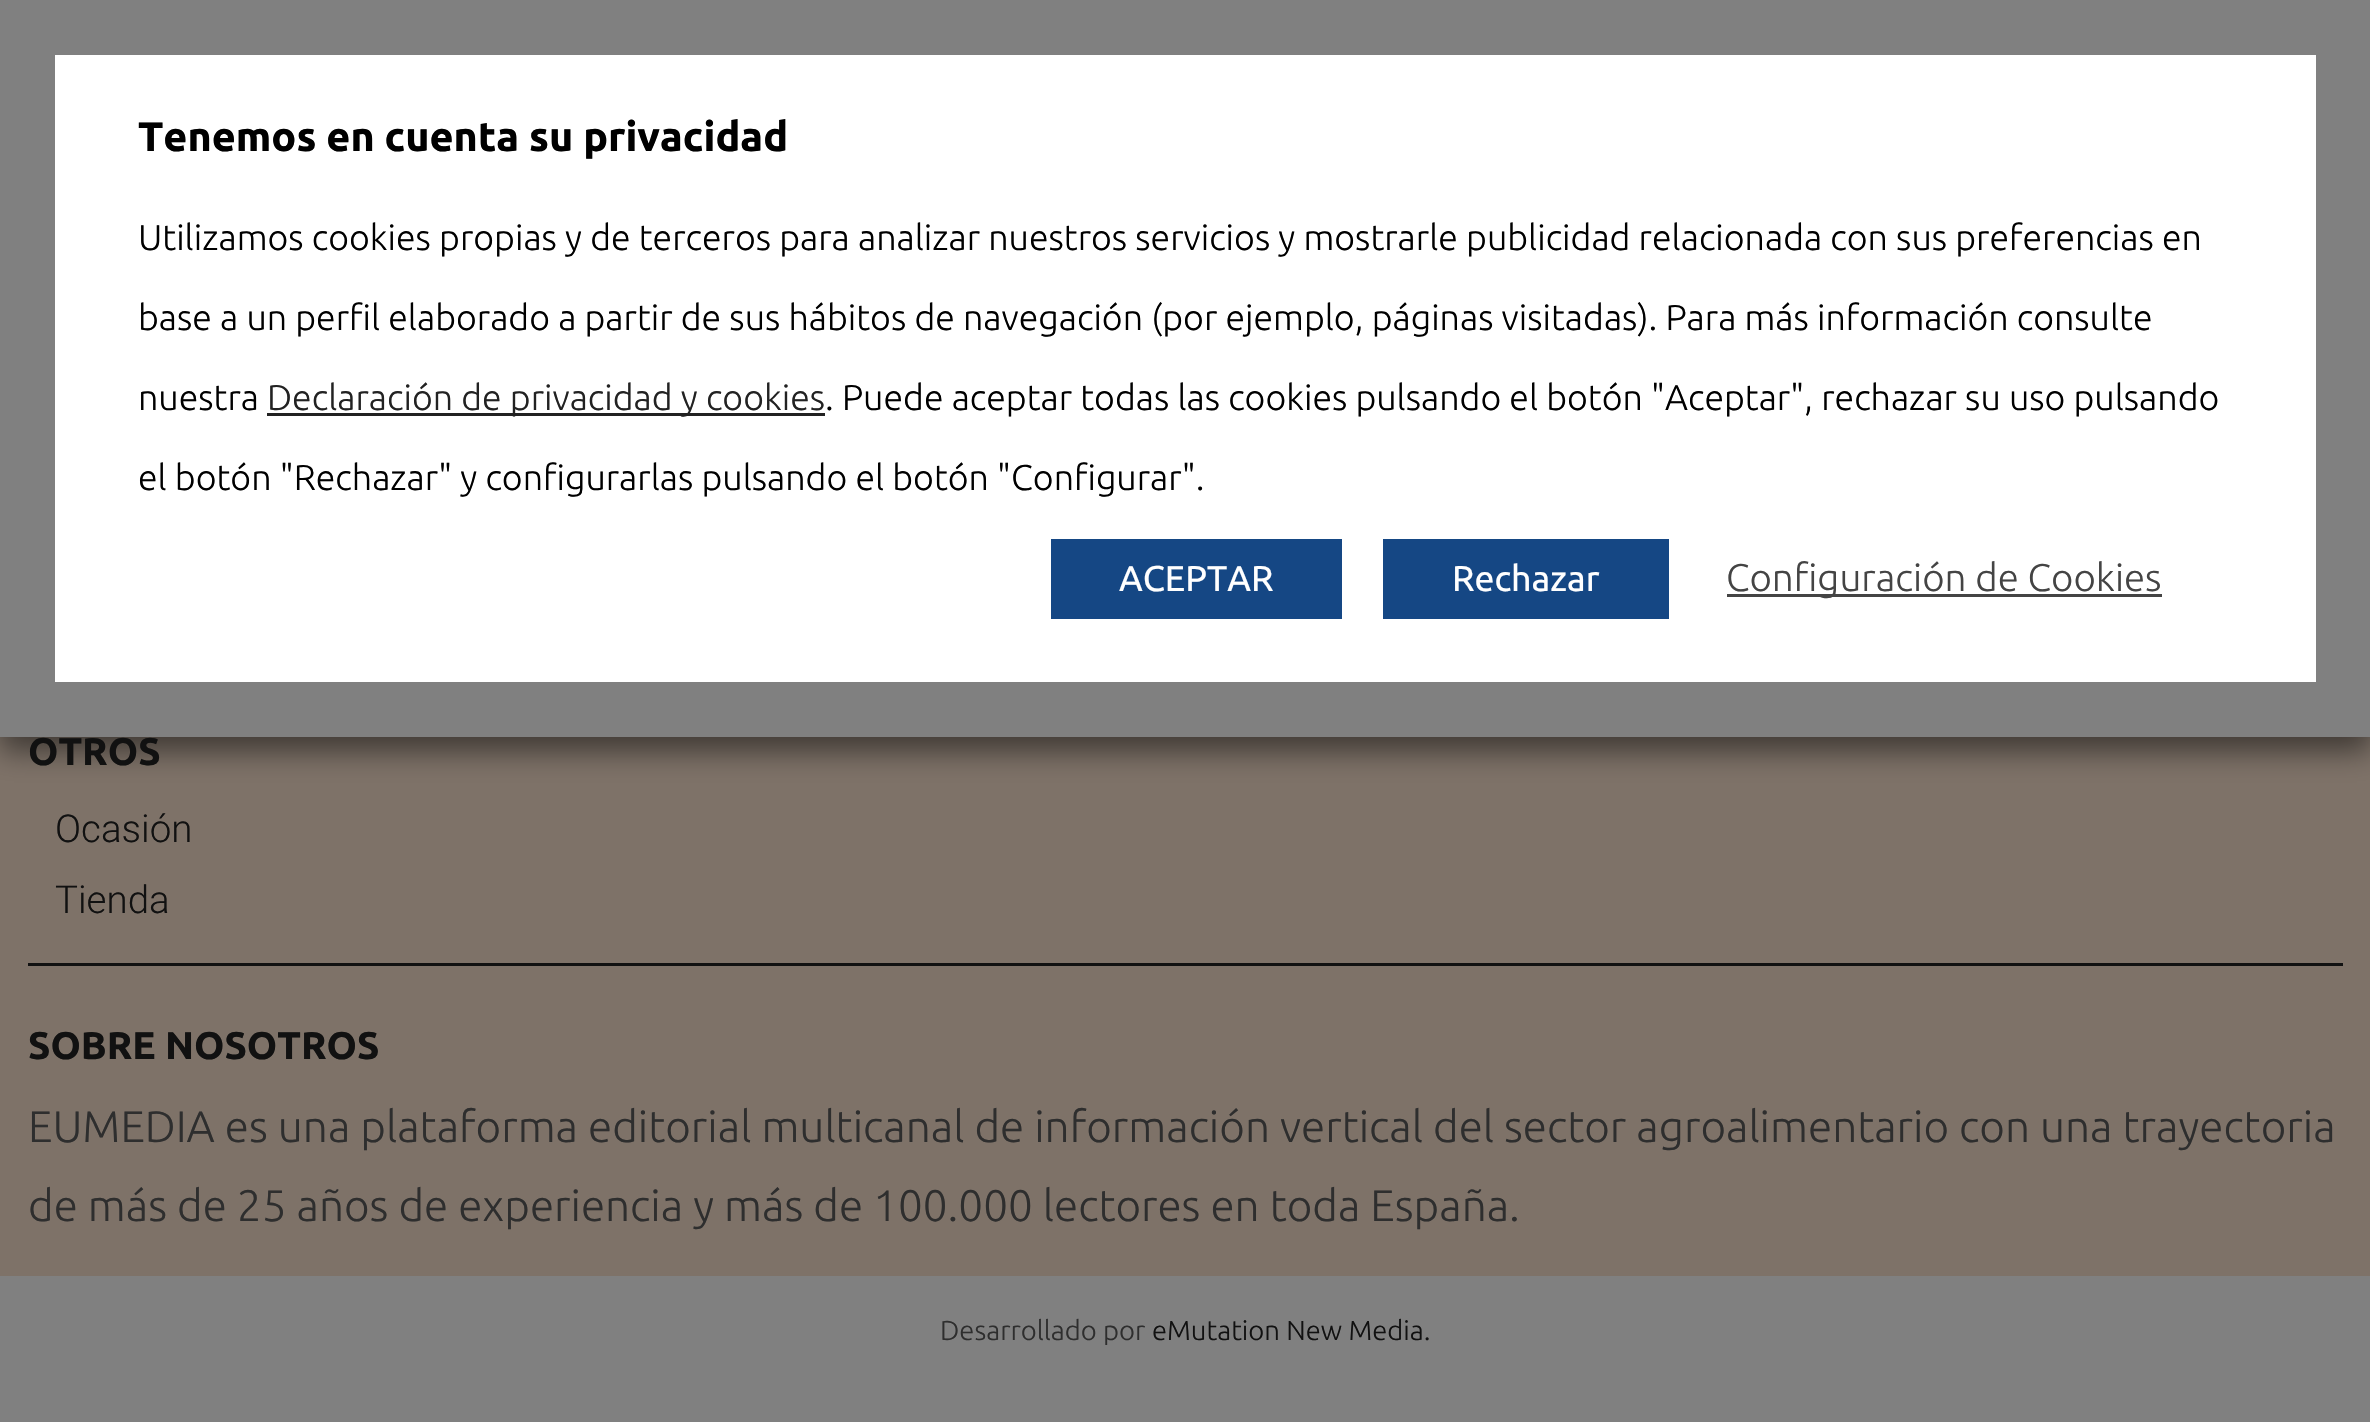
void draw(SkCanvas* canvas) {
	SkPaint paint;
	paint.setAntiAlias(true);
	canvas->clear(0xff808080);
	paint.setColor(0xff7e7268);
	canvas->drawRect(SkRect::MakeXYWH(0, 737, 2370, 539), paint);
	paint.setColor(0x80000000);
	paint.setMaskFilter(SkMaskFilter::MakeBlur(kNormal_SkBlurStyle, 14));
	canvas->drawRect(SkRect::MakeXYWH(0, 14, 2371, 737), paint);
	paint.setMaskFilter(nullptr);
	paint.setColor(0xffffffff);
	canvas->drawRect(SkRect::MakeXYWH(27.5, 27.5, 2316, 682), paint);
	paint.setStroke(true);
	paint.setStrokeWidth(55);
	paint.setColor(0xff808080);
	canvas->drawRect(SkRect::MakeXYWH(27.5, 27.5, 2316, 682), paint);
	SkFont f1(fontMgr->matchFamilyStyle("Ubuntu", SkFontStyle::Bold()), 41.25);
	f1.setSubpixel(true);
	paint.setStroke(false);
	paint.setColor(0xff000000);
	canvas->drawString("Tenemos en cuenta su privacidad", 138, 151, f1, paint);
	SkFont f2(fontMgr->matchFamilyStyle("Ubuntu", SkFontStyle(300, SkFontStyle::kNormal_Width, SkFontStyle::kUpright_Slant)), 35.75);
	f2.setSubpixel(true);
	canvas->drawString("Utilizamos cookies propias y de terceros para analizar nuestros servicios y mostrarle publicidad relacionada con sus preferencias en", 138, 250, f2, paint);
	canvas->drawString("base a un perfil elaborado a partir de sus hábitos de navegación (por ejemplo, páginas visitadas). Para más información consulte", 138, 330, f2, paint);
	canvas->drawString("nuestra", 138, 410, f2, paint);
	paint.setColor(0xff222222);
	canvas->drawRect(SkRect::MakeXYWH(267, 413, 558, 3), paint);
	canvas->drawString("Declaración de privacidad y cookies", 267, 410, f2, paint);
	paint.setColor(0xff000000);
	canvas->drawString(". Puede aceptar todas las cookies pulsando el botón \"Aceptar\", rechazar su uso pulsando", 825, 410, f2, paint);
	canvas->drawString("el botón \"Rechazar\" y configurarlas pulsando el botón \"Configurar\".", 138, 490, f2, paint);
	paint.setColor(0xff154784);
	canvas->drawRect(SkRect::MakeXYWH(1051, 539, 291, 80), paint);
	SkFont f3(fontMgr->matchFamilyStyle("Ubuntu", SkFontStyle::Normal()), 35.75);
	f3.setSubpixel(true);
	paint.setColor(0xffffffff);
	canvas->drawString("ACEPTAR", 1119, 591, f3, paint);
	paint.setColor(0xff154784);
	canvas->drawRect(SkRect::MakeXYWH(1383, 539, 286, 80), paint);
	paint.setColor(0xffffffff);
	canvas->drawString("Rechazar", 1452, 591, f3, paint);
	paint.setColor(0xff444444);
	canvas->drawRect(SkRect::MakeXYWH(1727, 594, 435, 3), paint);
	SkFont f4(fontMgr->matchFamilyStyle("Ubuntu", SkFontStyle(300, SkFontStyle::kNormal_Width, SkFontStyle::kUpright_Slant)), 38.5);
	f4.setSubpixel(true);
	canvas->drawString("Configuración de Cookies", 1726, 591, f4, paint);
	SkFont f5(fontMgr->matchFamilyStyle("Ubuntu", SkFontStyle::Bold()), 38.5);
	f5.setSubpixel(true);
	paint.setColor(0xff111111);
	canvas->drawString("OTROS", 28, 765, f5, paint);
	SkFont f6(fontMgr->matchFamilyStyle("Roboto", SkFontStyle(300, SkFontStyle::kNormal_Width, SkFontStyle::kUpright_Slant)), 38.5);
	f6.setSubpixel(true);
	canvas->drawString("Ocasión", 55, 842, f6, paint);
	canvas->drawString("Tienda", 55, 913, f6, paint);
	canvas->drawRect(SkRect::MakeXYWH(28, 963, 2315, 3), paint);
	canvas->drawString("SOBRE NOSOTROS", 28, 1059, f5, paint);
	SkFont f7(fontMgr->matchFamilyStyle("Ubuntu", SkFontStyle(300, SkFontStyle::kNormal_Width, SkFontStyle::kUpright_Slant)), 44);
	f7.setSubpixel(true);
	paint.setColor(0xff2e2e2e);
	canvas->drawString("EUMEDIA es una plataforma editorial multicanal de información vertical del sector agroalimentario con una trayectoria", 28, 1142, f7, paint);
	canvas->drawString("de más de 25 años de experiencia y más de 100.000 lectores en toda España.", 28, 1221, f7, paint);
	SkFont f8(fontMgr->matchFamilyStyle("Ubuntu", SkFontStyle(300, SkFontStyle::kNormal_Width, SkFontStyle::kUpright_Slant)), 27.5);
	f8.setSubpixel(true);
	canvas->drawString("Desarrollado por", 940, 1340, f8, paint);
	paint.setColor(0xff111111);
	canvas->drawString("eMutation New Media.", 1152, 1340, f8, paint);
}
